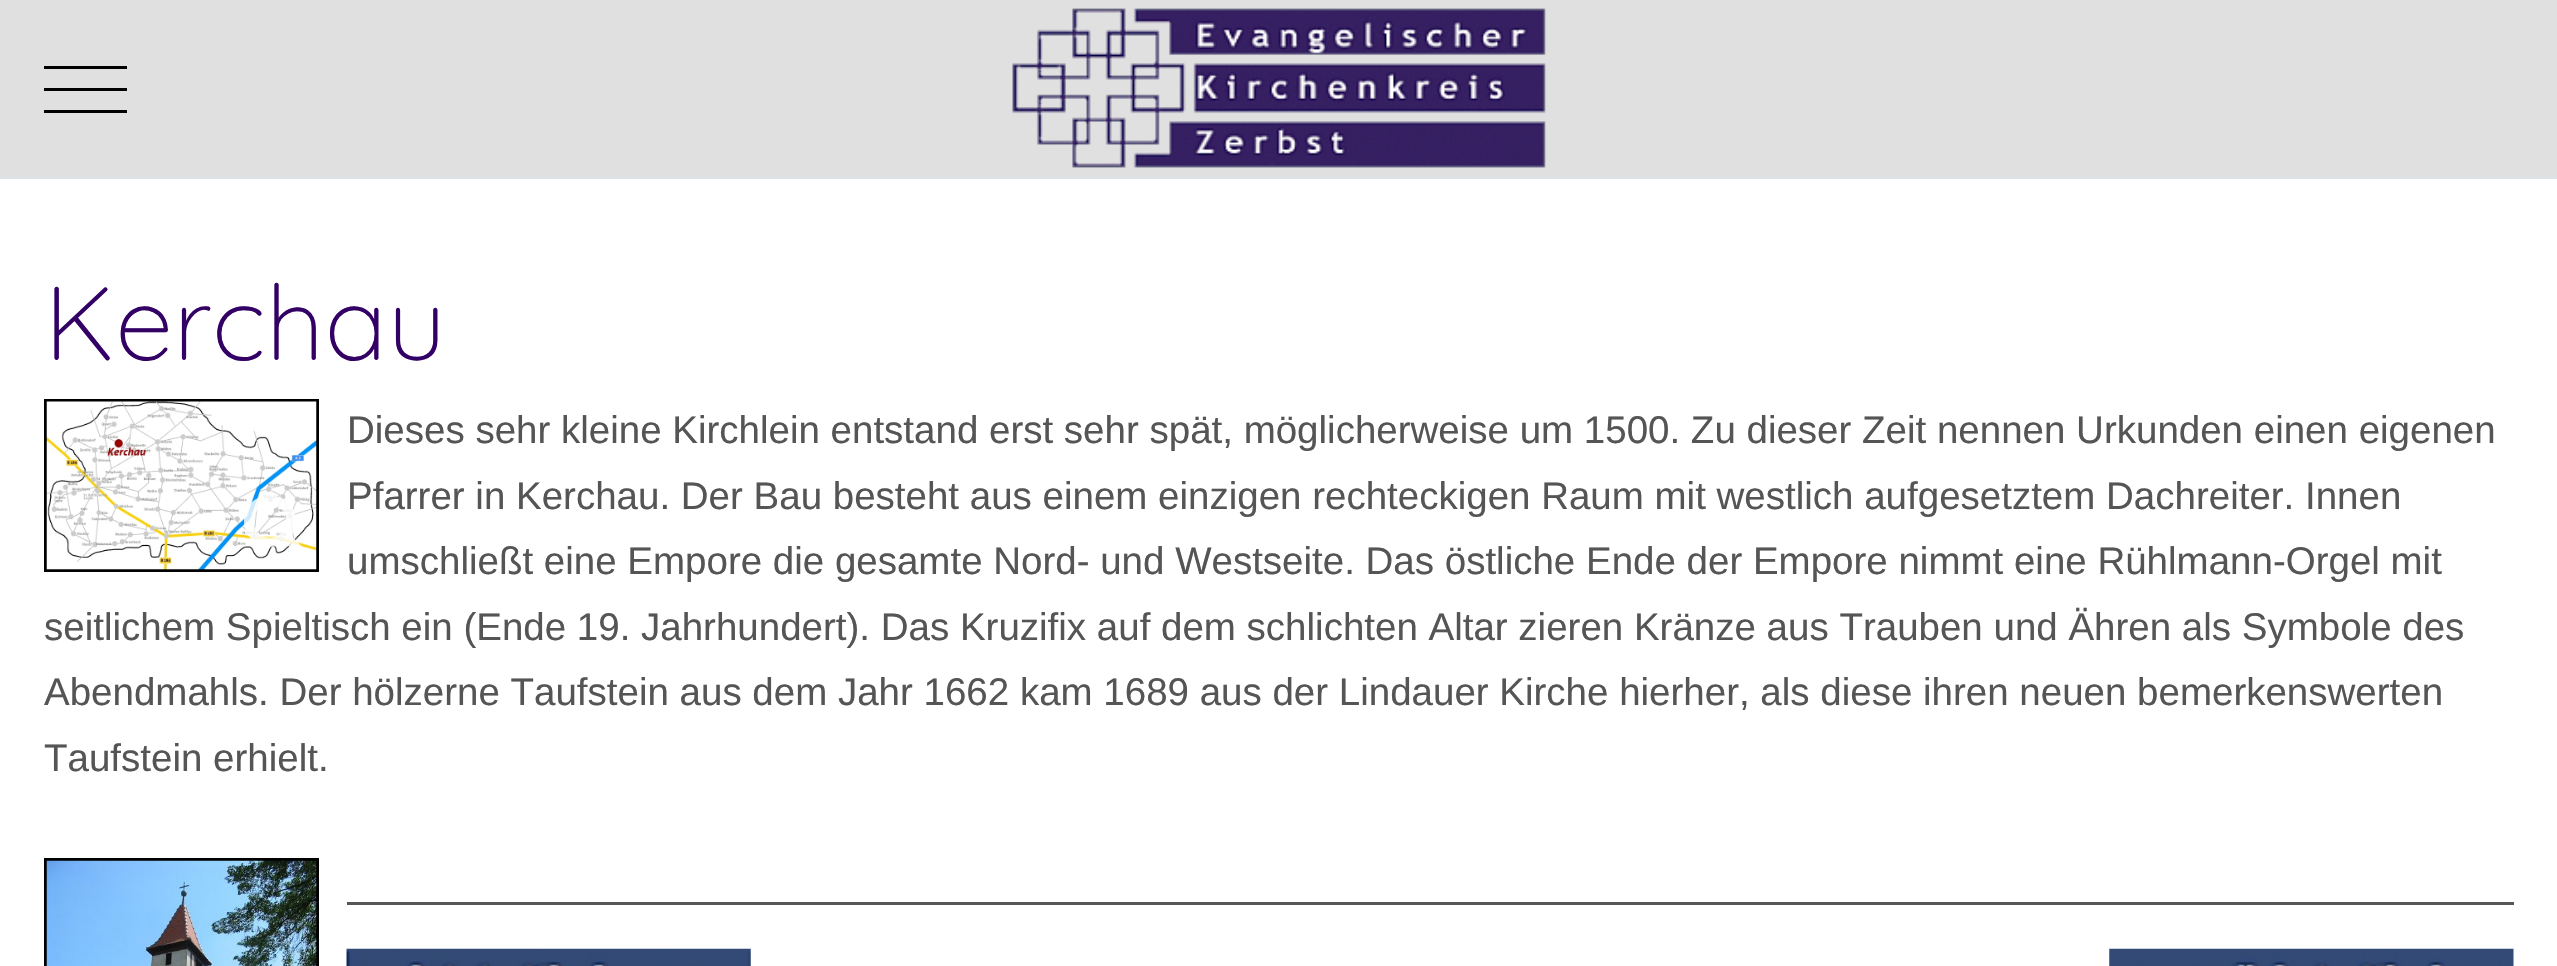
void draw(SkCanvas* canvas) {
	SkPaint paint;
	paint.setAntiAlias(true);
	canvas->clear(0xffffffff);
	paint.setColor(0xffe0e0e0);
	canvas->drawRect(SkRect::MakeXYWH(0, 0, 2557, 176), paint);
	paint.setColor(0xffdee2e6);
	canvas->drawRect(SkRect::MakeXYWH(0, 176, 2557, 3), paint);
	paint.setColor(0xff000000);
	canvas->drawRect(SkRect::MakeXYWH(44, 88, 83, 3), paint);
	canvas->drawRect(SkRect::MakeXYWH(44, 66, 83, 3), paint);
	canvas->drawRect(SkRect::MakeXYWH(44, 110, 83, 3), paint);
	canvas->drawImageRect(SkImages::DeferredFromEncodedData(SkData::MakeFromFileName("img1.png")), SkRect::MakeXYWH(1012, 8, 534, 160), SkSamplingOptions());
	SkFont f1(fontMgr->matchFamilyStyle("Quicksand", SkFontStyle(300, SkFontStyle::kNormal_Width, SkFontStyle::kUpright_Slant)), 104.5);
	f1.setSubpixel(true);
	paint.setColor(0xff330066);
	canvas->drawString("Kerchau", 44, 360, f1, paint);
	paint.setStroke(true);
	paint.setStrokeWidth(3);
	paint.setColor(0xff000000);
	canvas->drawRect(SkRect::MakeXYWH(45.5, 400.5, 272, 170), paint);
	canvas->drawImageRect(SkImages::DeferredFromEncodedData(SkData::MakeFromFileName("img2.png")), SkRect::MakeXYWH(46, 401, 271, 169), SkSamplingOptions());
	canvas->drawImageRect(SkImages::DeferredFromEncodedData(SkData::MakeFromFileName("img3.png")), SkRect::MakeXYWH(244, 495, 59, 60), SkSamplingOptions());
	SkFont f2(fontMgr->matchFamilyStyle("Liberation Sans", SkFontStyle::Normal()), 38.5);
	f2.setSubpixel(true);
	paint.setStroke(false);
	paint.setColor(0xff555555);
	canvas->drawString("Dieses sehr kleine Kirchlein entstand erst sehr spät, möglicherweise um 1500. Zu dieser Zeit nennen Urkunden einen eigenen", 347, 443, f2, paint);
	canvas->drawString("Pfarrer in Kerchau. Der Bau besteht aus einem einzigen rechteckigen Raum mit westlich aufgesetztem Dachreiter. Innen", 347, 509, f2, paint);
	canvas->drawString("umschließt eine Empore die gesamte Nord- und Westseite. Das östliche Ende der Empore nimmt eine Rühlmann-Orgel mit", 347, 574, f2, paint);
	canvas->drawString("seitlichem Spieltisch ein (Ende 19. Jahrhundert). Das Kruzifix auf dem schlichten Altar zieren Kränze aus Trauben und Ähren als Symbole des", 44, 640, f2, paint);
	canvas->drawString("Abendmahls. Der hölzerne Taufstein aus dem Jahr 1662 kam 1689 aus der Lindauer Kirche hierher, als diese ihren neuen bemerkenswerten", 44, 705, f2, paint);
	canvas->drawString("Taufstein erhielt.", 44, 771, f2, paint);
	paint.setStroke(true);
	paint.setColor(0xff000000);
	canvas->drawRect(SkRect::MakeXYWH(45.5, 859.5, 272, 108), paint);
	canvas->drawImageRect(SkImages::DeferredFromEncodedData(SkData::MakeFromFileName("img4.png")), SkRect::MakeXYWH(46, 860, 271, 106), SkSamplingOptions());
	paint.setStroke(false);
	paint.setColor(0xff555555);
	canvas->drawRect(SkRect::MakeXYWH(347, 902, 2167, 3), paint);
	canvas->drawImageRect(SkImages::DeferredFromEncodedData(SkData::MakeFromFileName("img5.png")), SkRect::MakeXYWH(346, 948, 405, 18), SkSamplingOptions());
	canvas->drawImageRect(SkImages::DeferredFromEncodedData(SkData::MakeFromFileName("img6.png")), SkRect::MakeXYWH(2109, 948, 405, 18), SkSamplingOptions());
}
